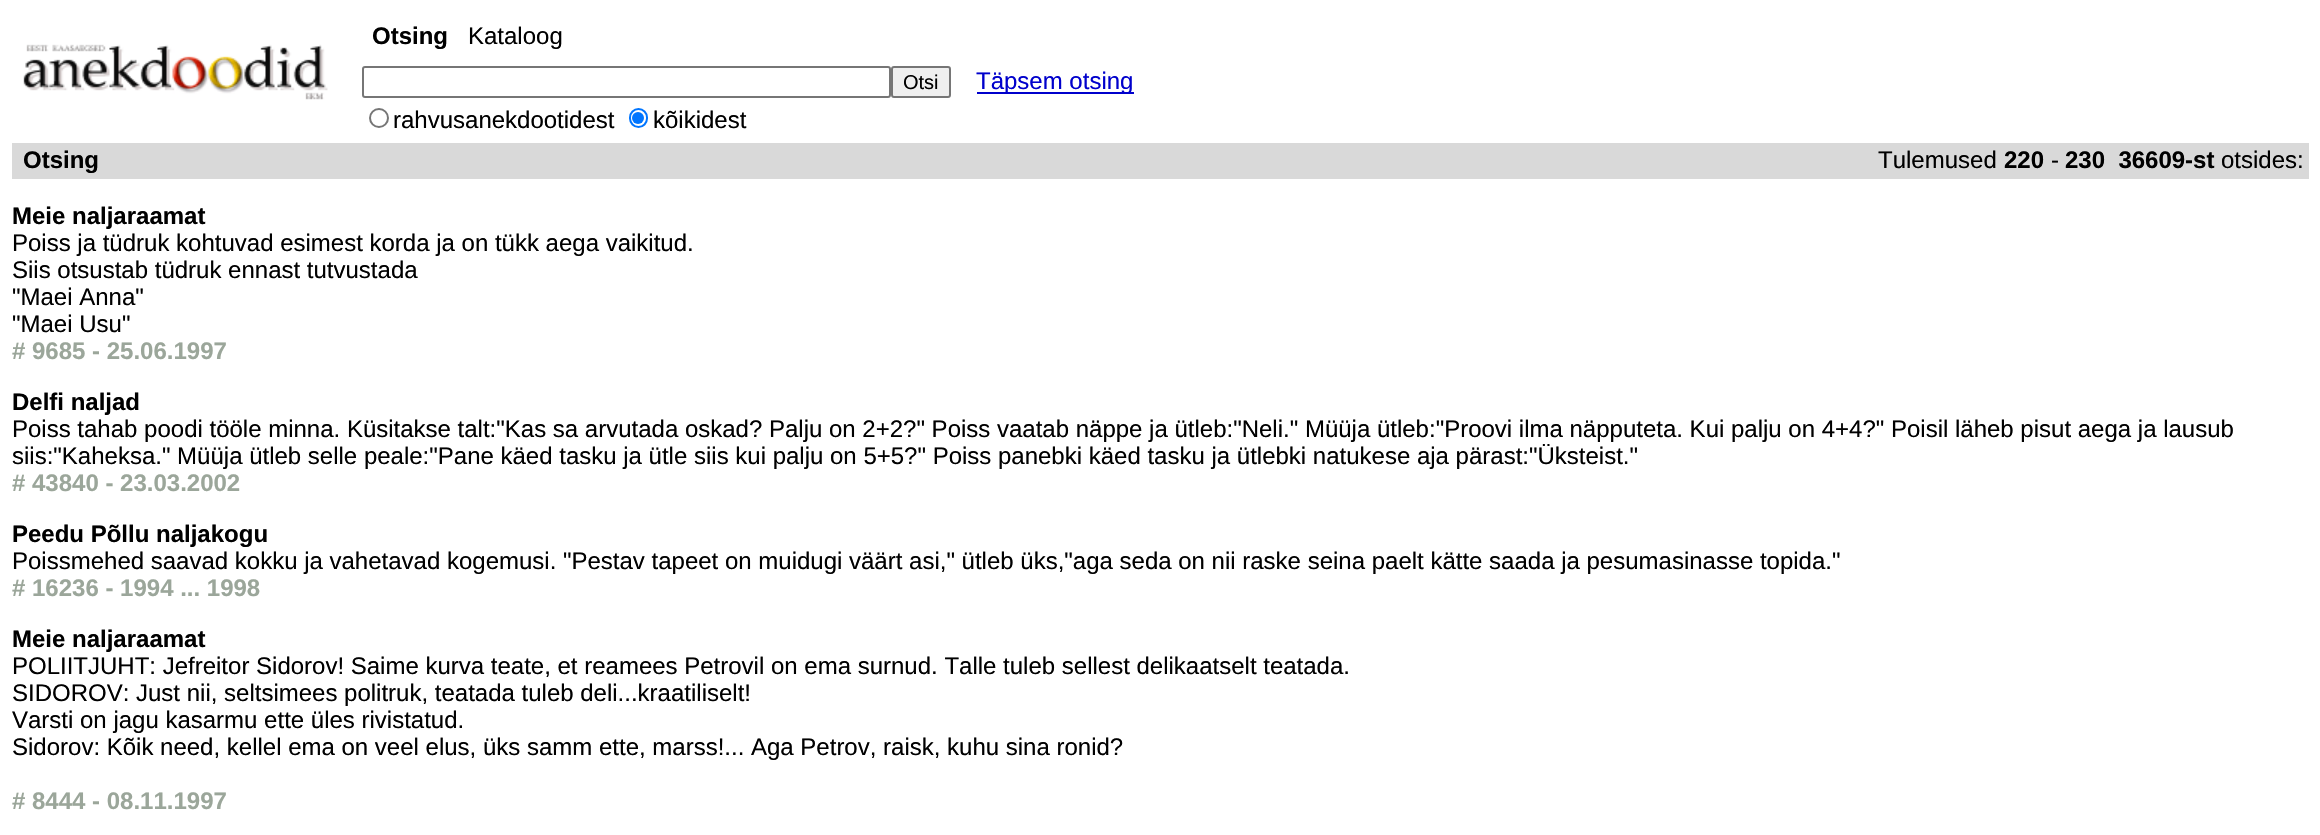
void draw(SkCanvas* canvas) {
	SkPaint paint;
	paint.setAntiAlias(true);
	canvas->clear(0xffffffff);
	canvas->drawImageRect(SkImages::DeferredFromEncodedData(SkData::MakeFromFileName("img1.png")), SkRect::MakeXYWH(23, 44, 305, 56), SkSamplingOptions());
	SkFont f1(fontMgr->matchFamilyStyle("Liberation Sans", SkFontStyle::Bold()), 24);
	f1.setSubpixel(true);
	paint.setColor(0xff000000);
	canvas->drawString("Otsing", 372, 44, f1, paint);
	SkFont f2(fontMgr->matchFamilyStyle("Liberation Sans", SkFontStyle::Normal()), 24);
	f2.setSubpixel(true);
	canvas->drawString("Kataloog", 468, 44, f2, paint);
	paint.setStroke(true);
	paint.setStrokeWidth(2);
	paint.setColor(0xff767676);
	canvas->drawRoundRect(SkRect::MakeXYWH(363, 67, 527, 30), 2, 2, paint);
	paint.setStroke(false);
	paint.setColor(0xffefefef);
	canvas->drawRoundRect(SkRect::MakeXYWH(892, 67, 58, 30), 2, 2, paint);
	paint.setStroke(true);
	paint.setColor(0xff767676);
	canvas->drawRoundRect(SkRect::MakeXYWH(892, 67, 58, 30), 2, 2, paint);
	SkFont f3(fontMgr->matchFamilyStyle("Liberation Sans", SkFontStyle::Normal()), 20);
	f3.setSubpixel(true);
	paint.setStroke(false);
	paint.setColor(0xff000000);
	canvas->drawString("Otsi", 903, 89, f3, paint);
	paint.setColor(0xff0000cc);
	canvas->drawRect(SkRect::MakeXYWH(977, 92, 157, 2), paint);
	canvas->drawString("Täpsem otsing", 976, 89, f2, paint);
	paint.setStroke(true);
	paint.setColor(0xff767676);
	canvas->drawCircle(379, 118, 9, paint);
	paint.setStroke(false);
	paint.setColor(0xff000000);
	canvas->drawString("rahvusanekdootidest", 393, 128, f2, paint);
	paint.setStroke(true);
	paint.setColor(0xff0075ff);
	canvas->drawRoundRect(SkRect::MakeXYWH(630, 109, 17, 18), 8.5, 8.5, paint);
	paint.setStroke(false);
	canvas->drawCircle(638, 118, 6, paint);
	paint.setColor(0xff000000);
	canvas->drawString("kõikidest", 653, 128, f2, paint);
	paint.setColor(0xffd9d9d9);
	canvas->drawRect(SkRect::MakeXYWH(12, 143, 2297, 36), paint);
	paint.setColor(0xff000000);
	canvas->drawString("Otsing", 23, 168, f1, paint);
	canvas->drawString("Tulemused", 1878, 168, f2, paint);
	canvas->drawString("220", 2004, 168, f1, paint);
	canvas->drawString("-", 2051, 168, f2, paint);
	canvas->drawString("230  36609-st", 2065, 168, f1, paint);
	canvas->drawString("otsides:", 2221, 168, f2, paint);
	canvas->drawString("Meie naljaraamat", 12, 224, f1, paint);
	canvas->drawString("Poiss ja tüdruk kohtuvad esimest korda ja on tükk aega vaikitud.", 12, 251, f2, paint);
	canvas->drawString("Siis otsustab tüdruk ennast tutvustada", 12, 278, f2, paint);
	canvas->drawString("\"Maei Anna\"", 12, 305, f2, paint);
	canvas->drawString("\"Maei Usu\"", 12, 332, f2, paint);
	paint.setColor(0xff9ba69a);
	canvas->drawString("# 9685 - 25.06.1997", 12, 359, f1, paint);
	paint.setColor(0xff000000);
	canvas->drawString("Delfi naljad", 12, 410, f1, paint);
	canvas->drawString("Poiss tahab poodi tööle minna. Küsitakse talt:\"Kas sa arvutada oskad? Palju on 2+2?\" Poiss vaatab näppe ja ütleb:\"Neli.\" Müüja ütleb:\"Proovi ilma näpputeta. Kui palju on 4+4?\" Poisil läheb pisut aega ja lausub", 12, 437, f2, paint);
	canvas->drawString("siis:\"Kaheksa.\" Müüja ütleb selle peale:\"Pane käed tasku ja ütle siis kui palju on 5+5?\" Poiss panebki käed tasku ja ütlebki natukese aja pärast:\"Üksteist.\"", 12, 464, f2, paint);
	paint.setColor(0xff9ba69a);
	canvas->drawString("# 43840 - 23.03.2002", 12, 491, f1, paint);
	paint.setColor(0xff000000);
	canvas->drawString("Peedu Põllu naljakogu", 12, 542, f1, paint);
	canvas->drawString("Poissmehed saavad kokku ja vahetavad kogemusi. \"Pestav tapeet on muidugi väärt asi,\" ütleb üks,\"aga seda on nii raske seina paelt kätte saada ja pesumasinasse topida.\"", 12, 569, f2, paint);
	paint.setColor(0xff9ba69a);
	canvas->drawString("# 16236 - 1994 ... 1998", 12, 596, f1, paint);
	paint.setColor(0xff000000);
	canvas->drawString("Meie naljaraamat", 12, 647, f1, paint);
	canvas->drawString("POLIITJUHT: Jefreitor Sidorov! Saime kurva teate, et reamees Petrovil on ema surnud. Talle tuleb sellest delikaatselt teatada.", 12, 674, f2, paint);
	canvas->drawString("SIDOROV: Just nii, seltsimees politruk, teatada tuleb deli...kraatiliselt!", 12, 701, f2, paint);
	canvas->drawString("Varsti on jagu kasarmu ette üles rivistatud.", 12, 728, f2, paint);
	canvas->drawString("Sidorov: Kõik need, kellel ema on veel elus, üks samm ette, marss!... Aga Petrov, raisk, kuhu sina ronid?", 12, 755, f2, paint);
	paint.setColor(0xff9ba69a);
	canvas->drawString("# 8444 - 08.11.1997", 12, 809, f1, paint);
}
